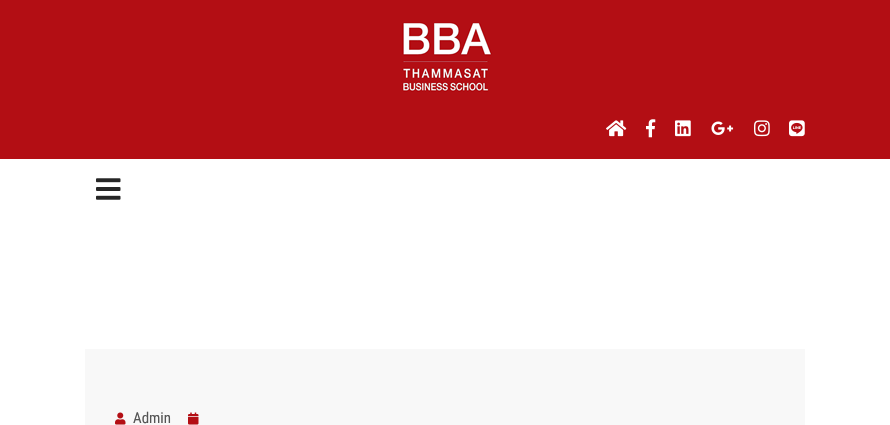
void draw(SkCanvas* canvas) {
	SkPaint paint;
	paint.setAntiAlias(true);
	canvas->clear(0xffffffff);
	paint.setColor(0xffb30e14);
	canvas->drawRect(SkRect::MakeXYWH(0, 0, 890, 159), paint);
	canvas->drawImageRect(SkImages::DeferredFromEncodedData(SkData::MakeFromFileName("img1.png")), SkRect::MakeXYWH(402, 22, 90, 70), SkSamplingOptions());
	canvas->drawImageRect(SkImages::DeferredFromEncodedData(SkData::MakeFromFileName("img2.png")), SkRect::MakeXYWH(606, 120, 21, 17), SkSamplingOptions());
	canvas->drawImageRect(SkImages::DeferredFromEncodedData(SkData::MakeFromFileName("img3.png")), SkRect::MakeXYWH(646, 119, 10, 19), SkSamplingOptions());
	canvas->drawImageRect(SkImages::DeferredFromEncodedData(SkData::MakeFromFileName("img4.png")), SkRect::MakeXYWH(675, 120, 16, 17), SkSamplingOptions());
	canvas->drawImageRect(SkImages::DeferredFromEncodedData(SkData::MakeFromFileName("img5.png")), SkRect::MakeXYWH(711, 121, 23, 14), SkSamplingOptions());
	canvas->drawImageRect(SkImages::DeferredFromEncodedData(SkData::MakeFromFileName("img6.png")), SkRect::MakeXYWH(754, 120, 16, 17), SkSamplingOptions());
	canvas->drawImageRect(SkImages::DeferredFromEncodedData(SkData::MakeFromFileName("img7.png")), SkRect::MakeXYWH(789, 120, 16, 17), SkSamplingOptions());
	canvas->drawImageRect(SkImages::DeferredFromEncodedData(SkData::MakeFromFileName("img8.png")), SkRect::MakeXYWH(96, 178, 25, 22), SkSamplingOptions());
	paint.setColor(0xfff8f8f8);
	canvas->drawRect(SkRect::MakeXYWH(85, 349, 720, 76), paint);
	canvas->drawImageRect(SkImages::DeferredFromEncodedData(SkData::MakeFromFileName("img9.png")), SkRect::MakeXYWH(115, 412, 11, 13), SkSamplingOptions());
	SkFont f1(fontMgr->matchFamilyStyle("Roboto Condensed", SkFontStyle::Normal()), 15);
	f1.setSubpixel(true);
	paint.setColor(0xff555555);
	canvas->drawString("Admin", 133, 423, f1, paint);
	canvas->drawImageRect(SkImages::DeferredFromEncodedData(SkData::MakeFromFileName("img10.png")), SkRect::MakeXYWH(188, 412, 11, 13), SkSamplingOptions());
}
